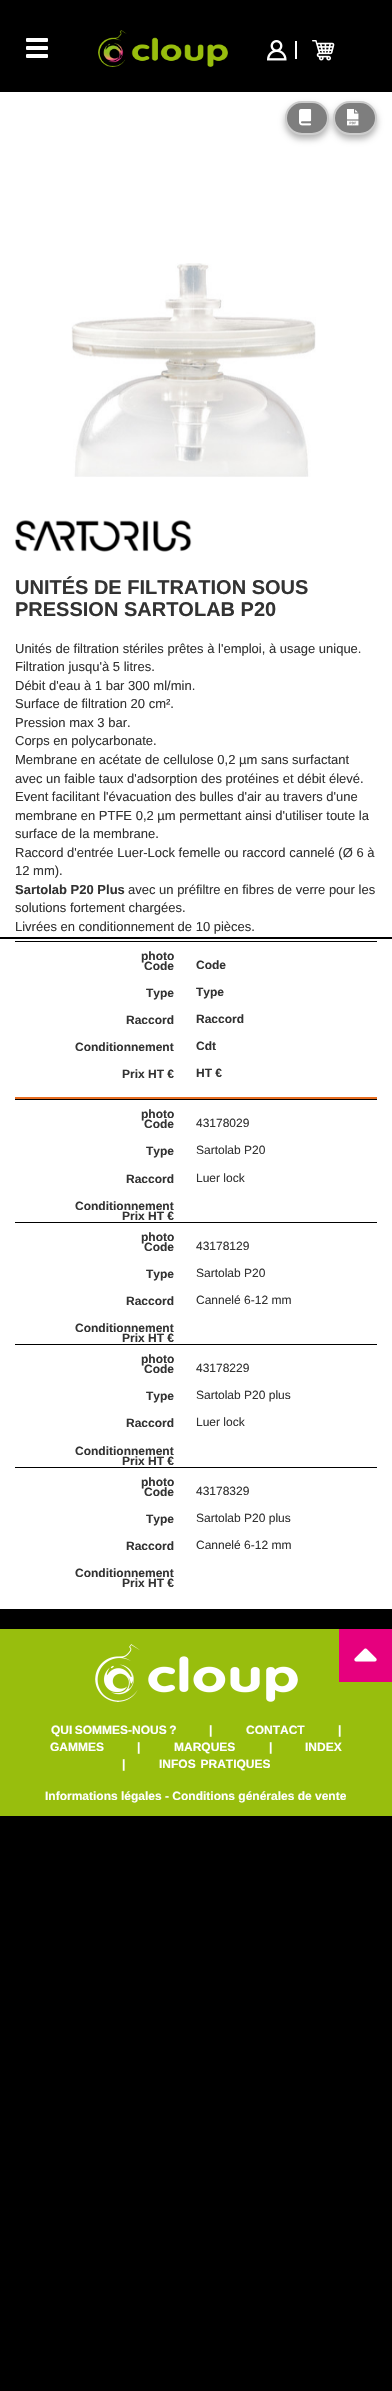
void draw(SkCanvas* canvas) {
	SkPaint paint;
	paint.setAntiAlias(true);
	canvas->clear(0xff000000);
	paint.setColor(0xffffffff);
	canvas->drawRoundRect(SkRect::MakeXYWH(26, 38, 22, 4), 1, 1, paint);
	canvas->drawRoundRect(SkRect::MakeXYWH(26, 46, 22, 4), 1, 1, paint);
	canvas->drawRoundRect(SkRect::MakeXYWH(26, 54, 22, 4), 1, 1, paint);
	canvas->drawImageRect(SkImages::DeferredFromEncodedData(SkData::MakeFromFileName("img1.png")), SkRect::MakeXYWH(98, 30, 130, 37), SkSamplingOptions());
	canvas->drawImageRect(SkImages::DeferredFromEncodedData(SkData::MakeFromFileName("img2.png")), SkRect::MakeXYWH(267, 40, 20, 21), SkSamplingOptions());
	canvas->drawRect(SkRect::MakeXYWH(295, 41, 2, 18), paint);
	canvas->drawImageRect(SkImages::DeferredFromEncodedData(SkData::MakeFromFileName("img3.png")), SkRect::MakeXYWH(312, 40, 23, 21), SkSamplingOptions());
	canvas->drawRect(SkRect::MakeXYWH(0, 92, 392, 1517), paint);
	paint.setColor(0x4d000000);
	paint.setMaskFilter(SkMaskFilter::MakeBlur(kNormal_SkBlurStyle, 3));
	canvas->drawRoundRect(SkRect::MakeXYWH(285, 105, 44, 34), 17, 17, paint);
	paint.setMaskFilter(nullptr);
	paint.setColor(0xff7e7e7e);
	canvas->drawRoundRect(SkRect::MakeXYWH(286, 102, 42, 32), 16, 16, paint);
	paint.setStroke(true);
	paint.setStrokeWidth(2);
	paint.setColor(0xffcccccc);
	canvas->drawRoundRect(SkRect::MakeXYWH(286, 102, 42, 32), 16, 16, paint);
	canvas->drawImageRect(SkImages::DeferredFromEncodedData(SkData::MakeFromFileName("img4.png")), SkRect::MakeXYWH(299, 109, 13, 17), SkSamplingOptions());
	paint.setStroke(false);
	paint.setColor(0x4d000000);
	paint.setMaskFilter(SkMaskFilter::MakeBlur(kNormal_SkBlurStyle, 3));
	canvas->drawRoundRect(SkRect::MakeXYWH(333, 105, 44, 34), 17, 17, paint);
	paint.setMaskFilter(nullptr);
	paint.setColor(0xff7e7e7e);
	canvas->drawRoundRect(SkRect::MakeXYWH(334, 102, 42, 32), 16, 16, paint);
	paint.setStroke(true);
	paint.setColor(0xffcccccc);
	canvas->drawRoundRect(SkRect::MakeXYWH(334, 102, 42, 32), 16, 16, paint);
	canvas->drawImageRect(SkImages::DeferredFromEncodedData(SkData::MakeFromFileName("img5.png")), SkRect::MakeXYWH(347, 109, 12, 17), SkSamplingOptions());
	canvas->drawImageRect(SkImages::DeferredFromEncodedData(SkData::MakeFromFileName("img6.png")), SkRect::MakeXYWH(71, 263, 245, 214), SkSamplingOptions());
	canvas->drawImageRect(SkImages::DeferredFromEncodedData(SkData::MakeFromFileName("img7.png")), SkRect::MakeXYWH(15, 520, 177, 32), SkSamplingOptions());
	SkFont f1(fontMgr->matchFamilyStyle("Liberation Sans", SkFontStyle::Bold()), 20);
	f1.setSubpixel(true);
	paint.setStroke(false);
	paint.setColor(0xff333333);
	canvas->drawString("UNITÉS DE FILTRATION SOUS", 15, 594, f1, paint);
	canvas->drawString("PRESSION SARTOLAB P20", 15, 616, f1, paint);
	SkFont f2(fontMgr->matchFamilyStyle("Liberation Sans", SkFontStyle::Normal()), 13);
	f2.setSubpixel(true);
	canvas->drawString("Unités de filtration stériles prêtes à l'emploi, à usage unique.", 15, 653, f2, paint);
	canvas->drawString("Filtration jusqu'à 5 litres.", 15, 671, f2, paint);
	canvas->drawString("Débit d'eau à 1 bar 300 ml/min.", 15, 690, f2, paint);
	canvas->drawString("Surface de filtration 20 cm².", 15, 708, f2, paint);
	canvas->drawString("Pression max 3 bar.", 15, 727, f2, paint);
	canvas->drawString("Corps en polycarbonate.", 15, 745, f2, paint);
	canvas->drawString("Membrane en acétate de cellulose 0,2 µm sans surfactant", 15, 764, f2, paint);
	canvas->drawString("avec un faible taux d'adsorption des protéines et débit élevé.", 15, 783, f2, paint);
	canvas->drawString("Event facilitant l'évacuation des bulles d'air au travers d'une", 15, 801, f2, paint);
	canvas->drawString("membrane en PTFE 0,2 µm permettant ainsi d'utiliser toute la", 15, 820, f2, paint);
	canvas->drawString("surface de la membrane.", 15, 838, f2, paint);
	canvas->drawString("Raccord d'entrée Luer-Lock femelle ou raccord cannelé (Ø 6 à", 15, 857, f2, paint);
	canvas->drawString("12 mm).", 15, 875, f2, paint);
	SkFont f3(fontMgr->matchFamilyStyle("Liberation Sans", SkFontStyle::Bold()), 13);
	f3.setSubpixel(true);
	canvas->drawString("Sartolab P20 Plus", 15, 894, f3, paint);
	canvas->drawString("avec un préfiltre en fibres de verre pour les", 128, 894, f2, paint);
	canvas->drawString("solutions fortement chargées.", 15, 912, f2, paint);
	canvas->drawString("Livrées en conditionnement de 10 pièces.", 15, 931, f2, paint);
	paint.setColor(0xff000000);
	canvas->drawRect(SkRect::MakeXYWH(0, 937, 392, 2), paint);
	canvas->drawRect(SkRect::MakeXYWH(15, 941, 362, 1), paint);
	paint.setColor(0xffe86d20);
	canvas->drawRect(SkRect::MakeXYWH(15, 1097, 362, 2), paint);
	SkFont f4(fontMgr->matchFamilyStyle("Liberation Sans", SkFontStyle::Bold()), 12);
	f4.setSubpixel(true);
	paint.setColor(0xff333333);
	canvas->drawString("photo", 141, 960, f4, paint);
	canvas->drawString("Code", 144, 970, f4, paint);
	canvas->drawString("Code", 196, 969, f4, paint);
	canvas->drawString("Type", 146, 997, f4, paint);
	canvas->drawString("Type", 196, 996, f4, paint);
	canvas->drawString("Raccord", 126, 1024, f4, paint);
	canvas->drawString("Raccord", 196, 1023, f4, paint);
	canvas->drawString("Conditionnement", 75, 1051, f4, paint);
	canvas->drawString("Cdt", 196, 1050, f4, paint);
	canvas->drawString("Prix HT €", 122, 1078, f4, paint);
	canvas->drawString("HT €", 196, 1077, f4, paint);
	paint.setColor(0xff000000);
	canvas->drawRect(SkRect::MakeXYWH(15, 1099, 362, 1), paint);
	paint.setColor(0xff333333);
	canvas->drawString("photo", 141, 1118, f4, paint);
	canvas->drawString("Code", 144, 1128, f4, paint);
	SkFont f5(fontMgr->matchFamilyStyle("Liberation Sans", SkFontStyle::Normal()), 12);
	f5.setSubpixel(true);
	canvas->drawString("43178029", 196, 1127, f5, paint);
	canvas->drawString("Type", 146, 1155, f4, paint);
	canvas->drawString("Sartolab P20", 196, 1154, f5, paint);
	canvas->drawString("Raccord", 126, 1183, f4, paint);
	canvas->drawString("Luer lock", 196, 1182, f5, paint);
	canvas->drawString("Conditionnement", 75, 1210, f4, paint);
	canvas->drawString("Prix HT €", 122, 1220, f4, paint);
	paint.setColor(0xff000000);
	canvas->drawRect(SkRect::MakeXYWH(15, 1222, 362, 1), paint);
	paint.setColor(0xff333333);
	canvas->drawString("photo", 141, 1241, f4, paint);
	canvas->drawString("Code", 144, 1251, f4, paint);
	canvas->drawString("43178129", 196, 1250, f5, paint);
	canvas->drawString("Type", 146, 1278, f4, paint);
	canvas->drawString("Sartolab P20", 196, 1277, f5, paint);
	canvas->drawString("Raccord", 126, 1305, f4, paint);
	canvas->drawString("Cannelé 6-12 mm", 196, 1304, f5, paint);
	canvas->drawString("Conditionnement", 75, 1332, f4, paint);
	canvas->drawString("Prix HT €", 122, 1342, f4, paint);
	paint.setColor(0xff000000);
	canvas->drawRect(SkRect::MakeXYWH(15, 1344, 362, 1), paint);
	paint.setColor(0xff333333);
	canvas->drawString("photo", 141, 1363, f4, paint);
	canvas->drawString("Code", 144, 1373, f4, paint);
	canvas->drawString("43178229", 196, 1372, f5, paint);
	canvas->drawString("Type", 146, 1400, f4, paint);
	canvas->drawString("Sartolab P20 plus", 196, 1399, f5, paint);
	canvas->drawString("Raccord", 126, 1427, f4, paint);
	canvas->drawString("Luer lock", 196, 1426, f5, paint);
	canvas->drawString("Conditionnement", 75, 1455, f4, paint);
	canvas->drawString("Prix HT €", 122, 1465, f4, paint);
	paint.setColor(0xff000000);
	canvas->drawRect(SkRect::MakeXYWH(15, 1467, 362, 1), paint);
	paint.setColor(0xff333333);
	canvas->drawString("photo", 141, 1486, f4, paint);
	canvas->drawString("Code", 144, 1496, f4, paint);
	canvas->drawString("43178329", 196, 1495, f5, paint);
	canvas->drawString("Type", 146, 1523, f4, paint);
	canvas->drawString("Sartolab P20 plus", 196, 1522, f5, paint);
	canvas->drawString("Raccord", 126, 1550, f4, paint);
	canvas->drawString("Cannelé 6-12 mm", 196, 1549, f5, paint);
	canvas->drawString("Conditionnement", 75, 1577, f4, paint);
	canvas->drawString("Prix HT €", 122, 1587, f4, paint);
	paint.setColor(0xff98be0d);
	canvas->drawRect(SkRect::MakeXYWH(0, 1629, 392, 187), paint);
	paint.setColor(0xffe6007e);
	canvas->drawRect(SkRect::MakeXYWH(339, 1629, 53, 53), paint);
	canvas->drawImageRect(SkImages::DeferredFromEncodedData(SkData::MakeFromFileName("img8.png")), SkRect::MakeXYWH(354, 1648, 23, 14), SkSamplingOptions());
	canvas->drawImageRect(SkImages::DeferredFromEncodedData(SkData::MakeFromFileName("img9.png")), SkRect::MakeXYWH(95, 1644, 203, 58), SkSamplingOptions());
	paint.setColor(0xffffffff);
	canvas->drawString("QUI SOMMES-NOUS ?", 51, 1734, f4, paint);
	canvas->drawString("|", 209, 1734, f4, paint);
	canvas->drawString("CONTACT", 246, 1734, f4, paint);
	canvas->drawString("|", 338, 1734, f4, paint);
	canvas->drawString("GAMMES", 50, 1751, f4, paint);
	canvas->drawString("|", 137, 1751, f4, paint);
	canvas->drawString("MARQUES", 174, 1751, f4, paint);
	canvas->drawString("|", 269, 1751, f4, paint);
	canvas->drawString("INDEX", 305, 1751, f4, paint);
	canvas->drawString("|", 122, 1768, f4, paint);
	canvas->drawString("INFOS  PRATIQUES", 159, 1768, f4, paint);
	canvas->drawString("Informations légales", 45, 1800, f4, paint);
	canvas->drawString("- Conditions générales de vente", 165, 1800, f4, paint);
}
